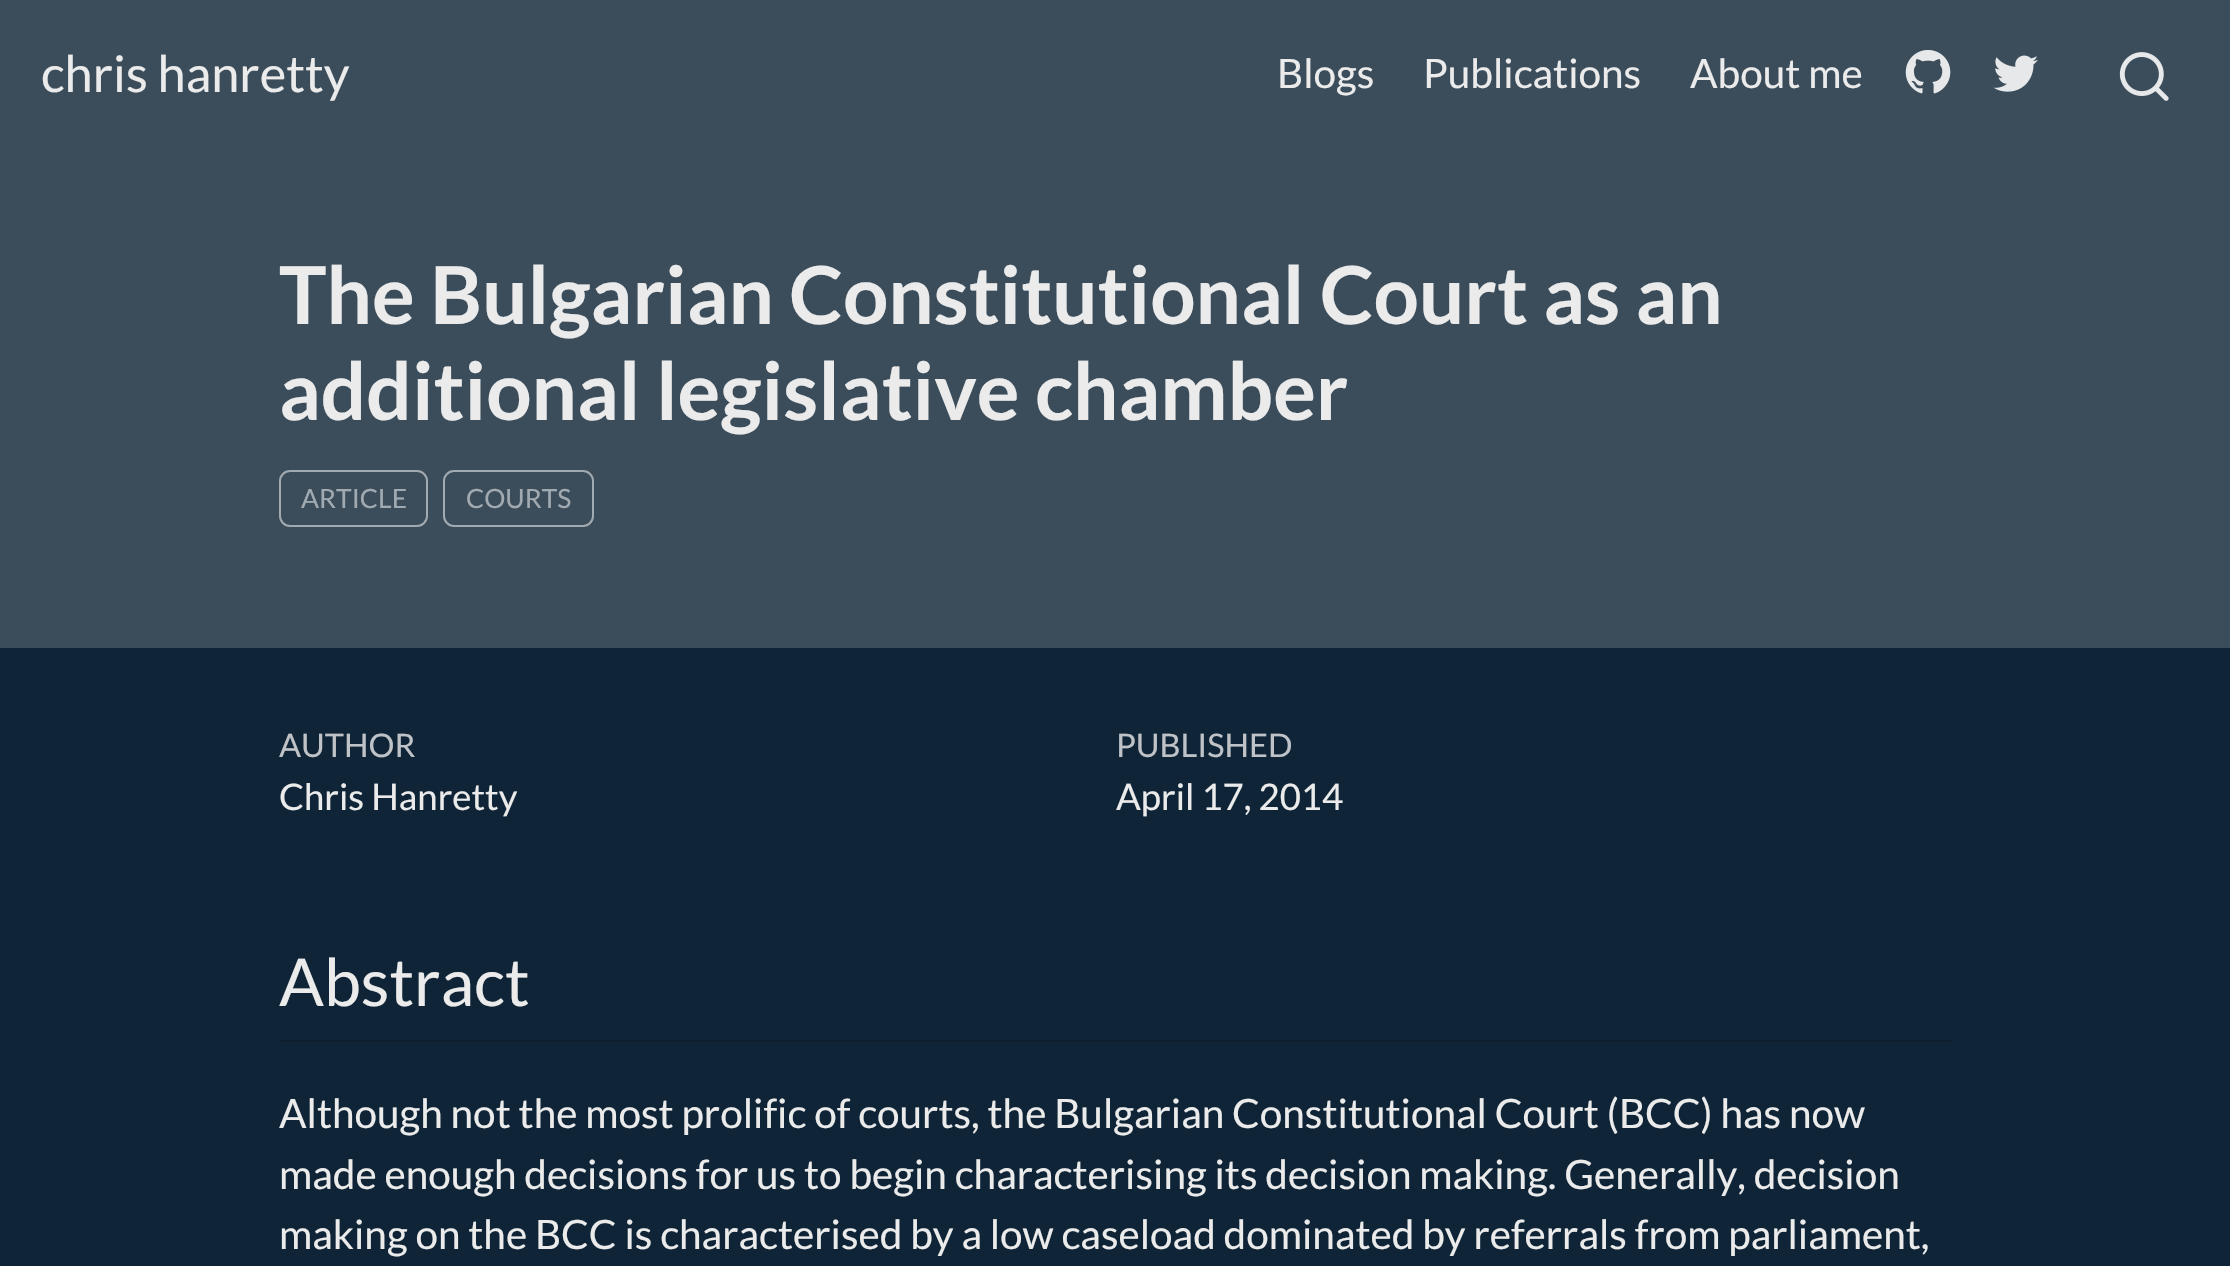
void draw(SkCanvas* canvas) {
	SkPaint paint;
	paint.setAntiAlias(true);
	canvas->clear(0xff0f2537);
	paint.setColor(0xff3b4d5b);
	canvas->drawRect(SkRect::MakeXYWH(0, 0, 2230, 648), paint);
	SkFont f1(fontMgr->matchFamilyStyle("Lato", SkFontStyle::Normal()), 50.5);
	f1.setSubpixel(true);
	paint.setColor(0xffebebeb);
	canvas->drawString("chris hanretty", 41, 92, f1, paint);
	SkFont f2(fontMgr->matchFamilyStyle("Lato", SkFontStyle::Normal()), 40.5);
	f2.setSubpixel(true);
	canvas->drawString("Blogs", 1277, 88, f2, paint);
	canvas->drawString("Publications", 1423, 88, f2, paint);
	canvas->drawString("About me", 1690, 88, f2, paint);
	canvas->drawImageRect(SkImages::DeferredFromEncodedData(SkData::MakeFromFileName("img1.png")), SkRect::MakeXYWH(1905, 50, 46, 44), SkSamplingOptions());
	canvas->drawImageRect(SkImages::DeferredFromEncodedData(SkData::MakeFromFileName("img2.png")), SkRect::MakeXYWH(1993, 55, 45, 37), SkSamplingOptions());
	canvas->drawImageRect(SkImages::DeferredFromEncodedData(SkData::MakeFromFileName("img3.png")), SkRect::MakeXYWH(2119, 52, 50, 49), SkSamplingOptions());
	SkFont f3(fontMgr->matchFamilyStyle("Lato", SkFontStyle::Bold()), 79.9);
	f3.setSubpixel(true);
	canvas->drawString("The Bulgarian Constitutional Court as an", 279, 324, f3, paint);
	canvas->drawString("additional legislative chamber", 279, 420, f3, paint);
	paint.setStroke(true);
	paint.setStrokeWidth(2);
	paint.setColor(0xffa2aab1);
	canvas->drawRoundRect(SkRect::MakeXYWH(280, 471, 147, 55), 10, 10, paint);
	SkFont f4(fontMgr->matchFamilyStyle("Lato", SkFontStyle::Normal()), 26.5);
	f4.setSubpixel(true);
	paint.setStroke(false);
	canvas->drawString("ARTICLE", 301, 508, f4, paint);
	paint.setStroke(true);
	canvas->drawRoundRect(SkRect::MakeXYWH(444, 471, 149, 55), 10, 10, paint);
	paint.setStroke(false);
	canvas->drawString("COURTS", 466, 508, f4, paint);
	SkFont f5(fontMgr->matchFamilyStyle("Lato", SkFontStyle::Normal()), 32.5);
	f5.setSubpixel(true);
	paint.setColor(0xffbfc3c7);
	canvas->drawString("AUTHOR", 279, 757, f5, paint);
	SkFont f6(fontMgr->matchFamilyStyle("Lato", SkFontStyle::Normal()), 36.5);
	f6.setSubpixel(true);
	paint.setColor(0xffebebeb);
	canvas->drawString("Chris Hanretty", 279, 810, f6, paint);
	paint.setColor(0xffbfc3c7);
	canvas->drawString("PUBLISHED", 1116, 757, f5, paint);
	paint.setColor(0xffebebeb);
	canvas->drawString("April 17, 2014", 1116, 810, f6, paint);
	paint.setColor(0xff0d1f2f);
	canvas->drawRect(SkRect::MakeXYWH(279, 1040, 1674, 2), paint);
	SkFont f7(fontMgr->matchFamilyStyle("Lato", SkFontStyle::Normal()), 66);
	f7.setSubpixel(true);
	paint.setColor(0xffebebeb);
	canvas->drawString("Abstract", 279, 1006, f7, paint);
	canvas->drawString("Although not the most prolific of courts, the Bulgarian Constitutional Court (BCC) has now", 279, 1128, f2, paint);
	canvas->drawString("made enough decisions for us to begin characterising its decision making. Generally, decision", 279, 1189, f2, paint);
	canvas->drawString("making on the BCC is characterised by a low caseload dominated by referrals from parliament,", 279, 1249, f2, paint);
}
